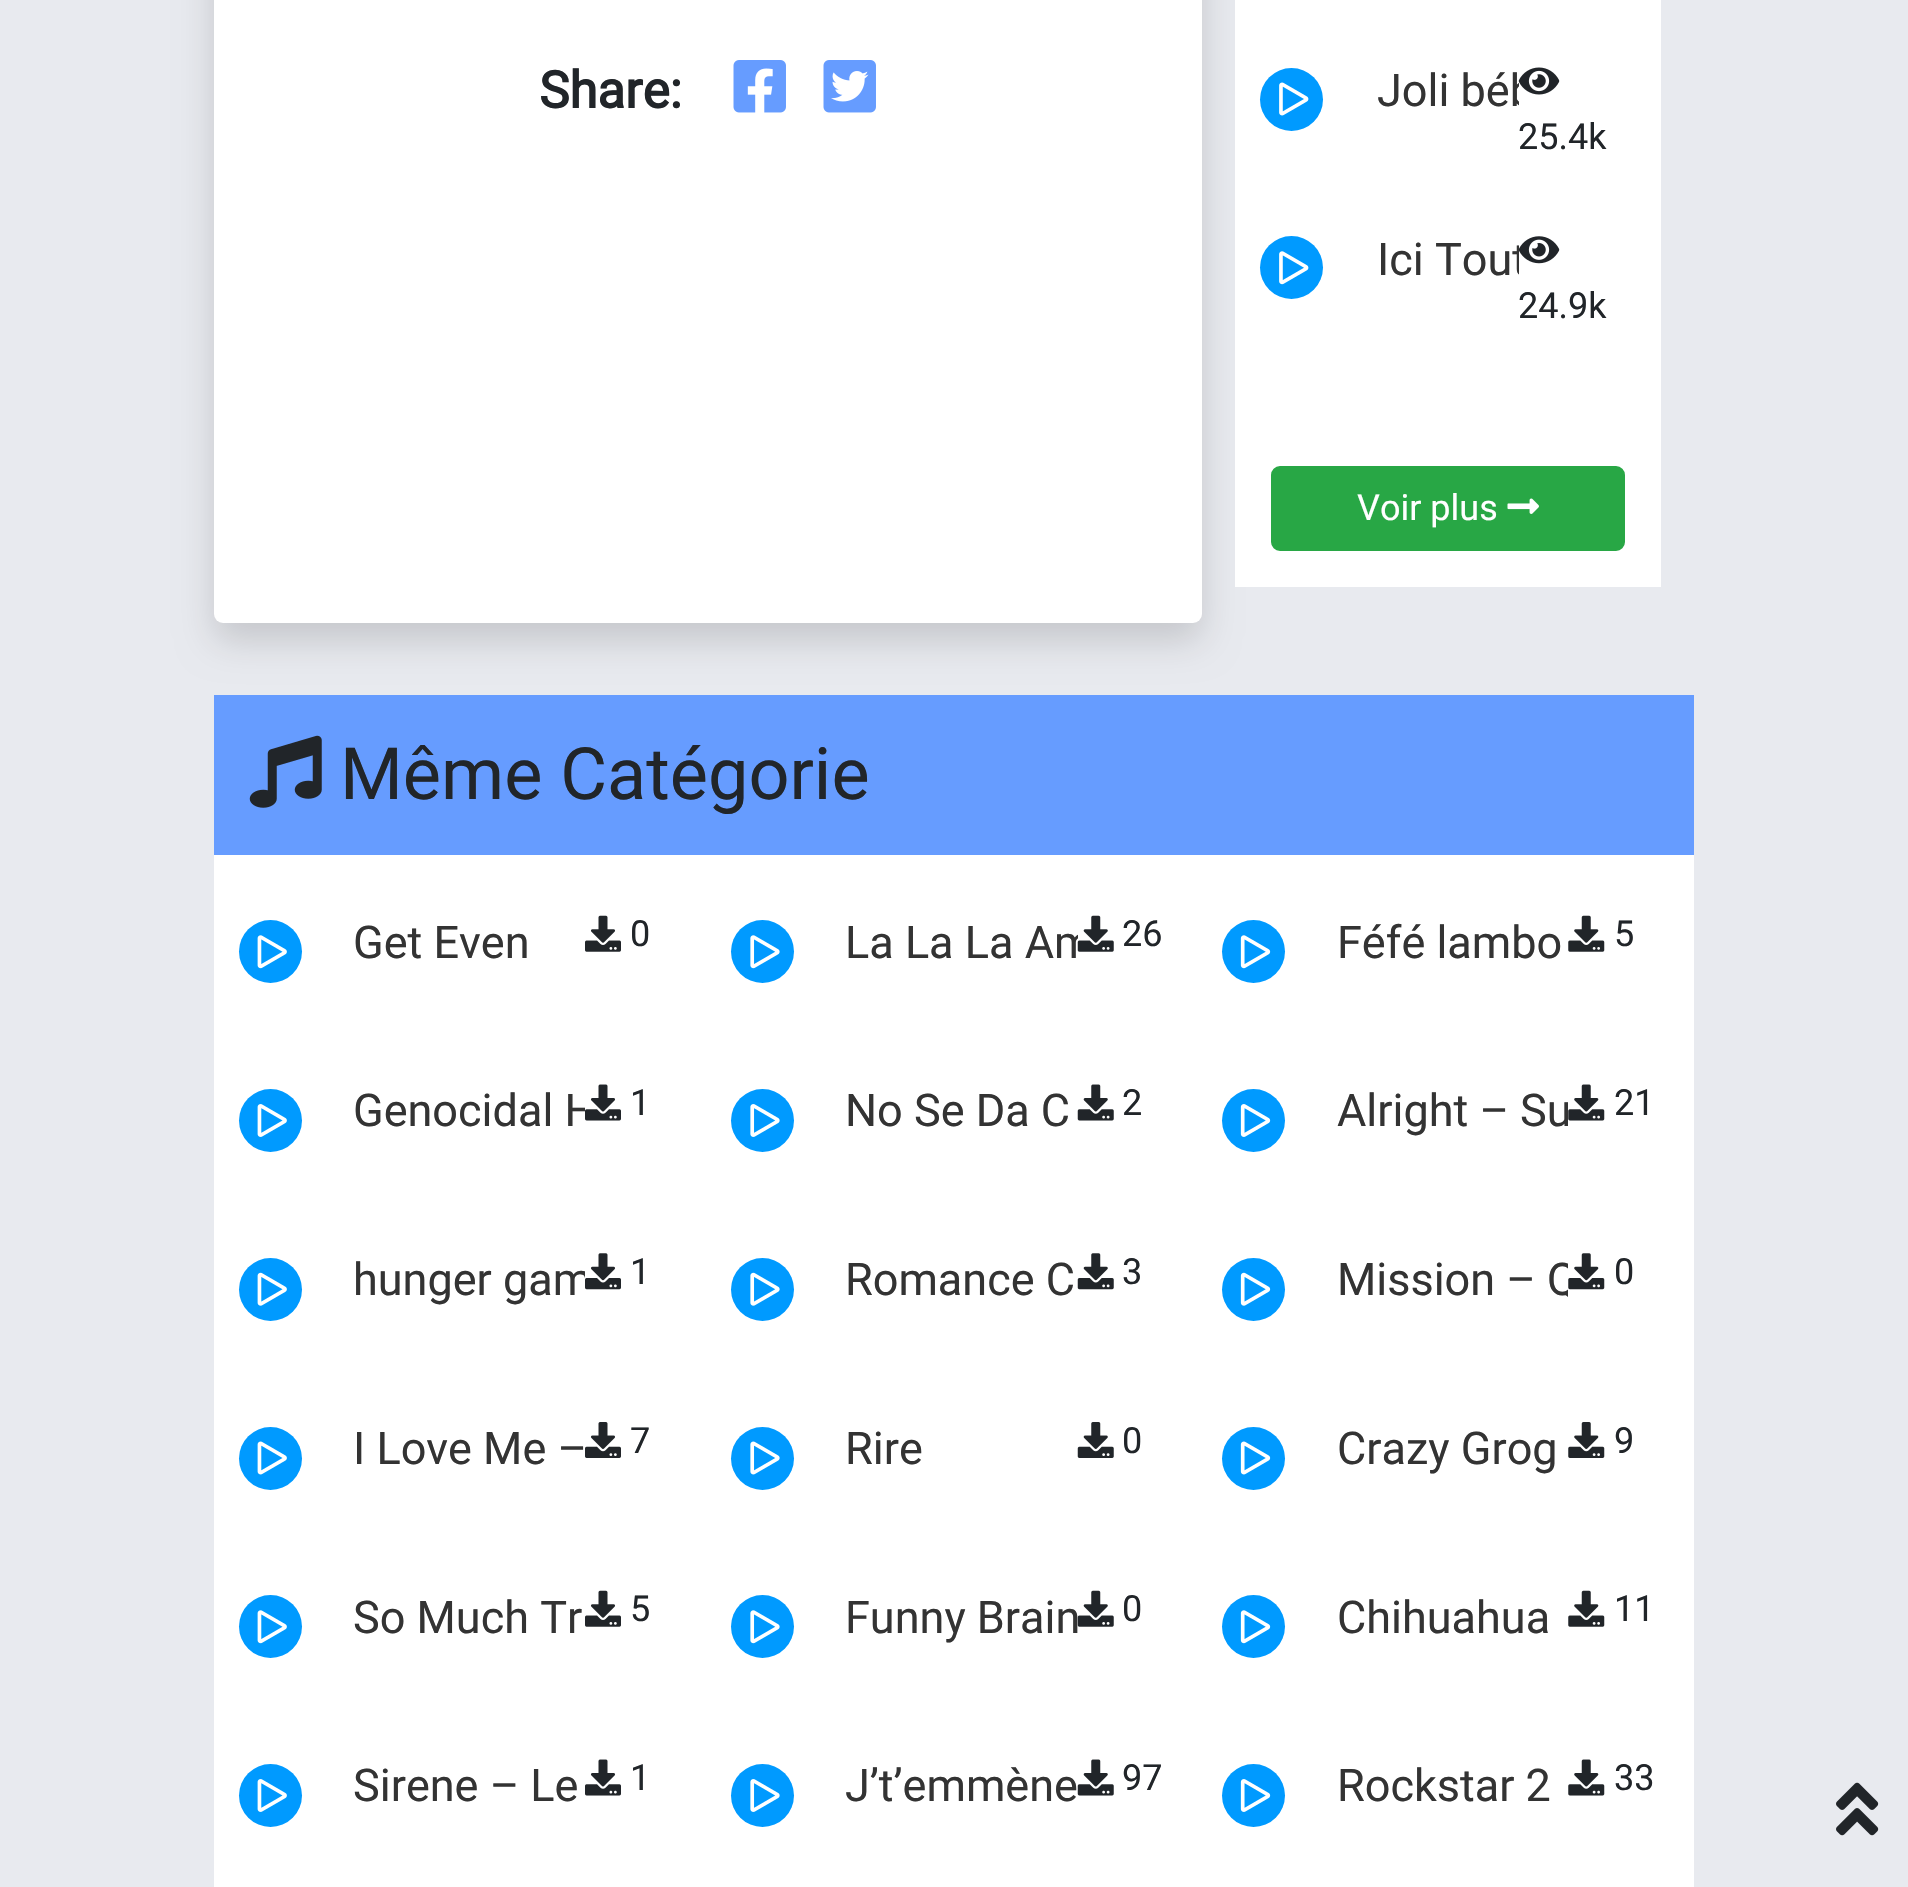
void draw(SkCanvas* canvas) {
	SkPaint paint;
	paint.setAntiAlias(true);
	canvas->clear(0xffe8eaef);
	paint.setColor(0xff669cff);
	canvas->drawRect(SkRect::MakeXYWH(214, 695, 1480, 160), paint);
	paint.setColor(0x26000000);
	paint.setMaskFilter(SkMaskFilter::MakeBlur(kNormal_SkBlurStyle, 18));
	canvas->drawRoundRect(SkRect::MakeXYWH(214, -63, 988, 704), 9, 9, paint);
	paint.setMaskFilter(nullptr);
	paint.setColor(0xffffffff);
	canvas->drawRoundRect(SkRect::MakeXYWH(214, -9, 988, 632), 9, 9, paint);
	SkFont f1(fontMgr->matchFamilyStyle("Roboto", SkFontStyle::Bold()), 51);
	f1.setSubpixel(true);
	paint.setColor(0xff212529);
	canvas->drawString("Share:", 539, 108, f1, paint);
	canvas->drawImageRect(SkImages::DeferredFromEncodedData(SkData::MakeFromFileName("img1.png")), SkRect::MakeXYWH(733, 60, 53, 53), SkSamplingOptions());
	canvas->drawImageRect(SkImages::DeferredFromEncodedData(SkData::MakeFromFileName("img2.png")), SkRect::MakeXYWH(823, 60, 53, 53), SkSamplingOptions());
	paint.setColor(0xffffffff);
	canvas->drawRect(SkRect::MakeXYWH(1235, 0, 426, 587), paint);
	paint.setColor(0xff009aff);
	canvas->drawCircle(1291.5, 99.5, 31.5, paint);
	canvas->drawImageRect(SkImages::DeferredFromEncodedData(SkData::MakeFromFileName("img3.png")), SkRect::MakeXYWH(1279, 82, 30, 34), SkSamplingOptions());
	canvas->save();
	canvas->clipRect(SkRect::MakeXYWH(1341, 56, 178, 68));
	SkFont f2(fontMgr->matchFamilyStyle("Roboto", SkFontStyle::Normal()), 45);
	f2.setSubpixel(true);
	paint.setColor(0xff333333);
	canvas->drawString("Joli béb", 1377, 106, f2, paint);
	canvas->restore();
	canvas->drawImageRect(SkImages::DeferredFromEncodedData(SkData::MakeFromFileName("img4.png")), SkRect::MakeXYWH(1518, 67, 42, 28), SkSamplingOptions());
	SkFont f3(fontMgr->matchFamilyStyle("Roboto", SkFontStyle::Normal()), 36);
	f3.setSubpixel(true);
	paint.setColor(0xff212529);
	canvas->drawString("25.4k", 1518, 149, f3, paint);
	paint.setColor(0xff009aff);
	canvas->drawCircle(1291.5, 267.5, 31.5, paint);
	canvas->drawImageRect(SkImages::DeferredFromEncodedData(SkData::MakeFromFileName("img5.png")), SkRect::MakeXYWH(1279, 251, 30, 34), SkSamplingOptions());
	canvas->save();
	canvas->clipRect(SkRect::MakeXYWH(1341, 225, 178, 68));
	paint.setColor(0xff333333);
	canvas->drawString("Ici Tout", 1377, 275, f2, paint);
	canvas->restore();
	canvas->drawImageRect(SkImages::DeferredFromEncodedData(SkData::MakeFromFileName("img6.png")), SkRect::MakeXYWH(1519, 236, 41, 28), SkSamplingOptions());
	paint.setColor(0xff212529);
	canvas->drawString("24.9k", 1518, 318, f3, paint);
	paint.setColor(0xff28a745);
	canvas->drawRoundRect(SkRect::MakeXYWH(1272, 467, 352, 83), 8, 8, paint);
	paint.setStroke(true);
	paint.setStrokeWidth(2);
	canvas->drawRoundRect(SkRect::MakeXYWH(1272, 467, 352, 83), 8, 8, paint);
	paint.setStroke(false);
	paint.setColor(0xffffffff);
	canvas->drawString("Voir plus", 1357, 520, f3, paint);
	canvas->drawImageRect(SkImages::DeferredFromEncodedData(SkData::MakeFromFileName("img7.png")), SkRect::MakeXYWH(1507, 498, 32, 16), SkSamplingOptions());
	canvas->drawRect(SkRect::MakeXYWH(214, 855, 1480, 1032), paint);
	canvas->drawImageRect(SkImages::DeferredFromEncodedData(SkData::MakeFromFileName("img8.png")), SkRect::MakeXYWH(249, 735, 73, 73), SkSamplingOptions());
	SkFont f4(fontMgr->matchFamilyStyle("Roboto", SkFontStyle::Normal()), 72);
	f4.setSubpixel(true);
	paint.setColor(0xff212529);
	canvas->drawString("Même Catégorie", 340, 799, f4, paint);
	paint.setColor(0xff009aff);
	canvas->drawCircle(270.5, 951.5, 31.5, paint);
	canvas->drawImageRect(SkImages::DeferredFromEncodedData(SkData::MakeFromFileName("img9.png")), SkRect::MakeXYWH(257, 935, 30, 34), SkSamplingOptions());
	paint.setColor(0xff333333);
	canvas->drawString("Get Even", 353, 958, f2, paint);
	canvas->drawImageRect(SkImages::DeferredFromEncodedData(SkData::MakeFromFileName("img10.png")), SkRect::MakeXYWH(585, 915, 36, 37), SkSamplingOptions());
	paint.setColor(0xff212529);
	canvas->drawString("0", 630, 946, f3, paint);
	paint.setColor(0xff009aff);
	canvas->drawCircle(762.5, 951.5, 31.5, paint);
	canvas->drawImageRect(SkImages::DeferredFromEncodedData(SkData::MakeFromFileName("img11.png")), SkRect::MakeXYWH(750, 935, 30, 34), SkSamplingOptions());
	canvas->save();
	canvas->clipRect(SkRect::MakeXYWH(810, 909, 268, 68));
	paint.setColor(0xff333333);
	canvas->drawString("La La La Am", 845, 958, f2, paint);
	canvas->restore();
	canvas->drawImageRect(SkImages::DeferredFromEncodedData(SkData::MakeFromFileName("img12.png")), SkRect::MakeXYWH(1077, 915, 37, 37), SkSamplingOptions());
	paint.setColor(0xff212529);
	canvas->drawString("26", 1122, 946, f3, paint);
	paint.setColor(0xff009aff);
	canvas->drawCircle(1253.5, 951.5, 31.5, paint);
	canvas->drawImageRect(SkImages::DeferredFromEncodedData(SkData::MakeFromFileName("img13.png")), SkRect::MakeXYWH(1240, 935, 31, 34), SkSamplingOptions());
	paint.setColor(0xff333333);
	canvas->drawString("Féfé lambo", 1337, 958, f2, paint);
	canvas->drawImageRect(SkImages::DeferredFromEncodedData(SkData::MakeFromFileName("img14.png")), SkRect::MakeXYWH(1568, 915, 37, 37), SkSamplingOptions());
	paint.setColor(0xff212529);
	canvas->drawString("5", 1614, 946, f3, paint);
	paint.setColor(0xff009aff);
	canvas->drawCircle(270.5, 1120.5, 31.5, paint);
	canvas->drawImageRect(SkImages::DeferredFromEncodedData(SkData::MakeFromFileName("img15.png")), SkRect::MakeXYWH(257, 1104, 30, 33), SkSamplingOptions());
	canvas->save();
	canvas->clipRect(SkRect::MakeXYWH(317, 1078, 268, 67));
	paint.setColor(0xff333333);
	canvas->drawString("Genocidal H", 353, 1126, f2, paint);
	canvas->restore();
	canvas->drawImageRect(SkImages::DeferredFromEncodedData(SkData::MakeFromFileName("img16.png")), SkRect::MakeXYWH(585, 1084, 36, 37), SkSamplingOptions());
	paint.setColor(0xff212529);
	canvas->drawString("1", 630, 1115, f3, paint);
	paint.setColor(0xff009aff);
	canvas->drawCircle(762.5, 1120.5, 31.5, paint);
	canvas->drawImageRect(SkImages::DeferredFromEncodedData(SkData::MakeFromFileName("img17.png")), SkRect::MakeXYWH(750, 1104, 30, 33), SkSamplingOptions());
	paint.setColor(0xff333333);
	canvas->drawString("No Se Da C", 845, 1126, f2, paint);
	canvas->drawImageRect(SkImages::DeferredFromEncodedData(SkData::MakeFromFileName("img18.png")), SkRect::MakeXYWH(1077, 1084, 37, 37), SkSamplingOptions());
	paint.setColor(0xff212529);
	canvas->drawString("2", 1122, 1115, f3, paint);
	paint.setColor(0xff009aff);
	canvas->drawCircle(1253.5, 1120.5, 31.5, paint);
	canvas->drawImageRect(SkImages::DeferredFromEncodedData(SkData::MakeFromFileName("img19.png")), SkRect::MakeXYWH(1240, 1104, 31, 33), SkSamplingOptions());
	canvas->save();
	canvas->clipRect(SkRect::MakeXYWH(1301, 1078, 267, 67));
	paint.setColor(0xff333333);
	canvas->drawString("Alright – Su", 1337, 1126, f2, paint);
	canvas->restore();
	canvas->drawImageRect(SkImages::DeferredFromEncodedData(SkData::MakeFromFileName("img20.png")), SkRect::MakeXYWH(1568, 1084, 37, 37), SkSamplingOptions());
	paint.setColor(0xff212529);
	canvas->drawString("21", 1614, 1115, f3, paint);
	paint.setColor(0xff009aff);
	canvas->drawCircle(270.5, 1289.5, 31.5, paint);
	canvas->drawImageRect(SkImages::DeferredFromEncodedData(SkData::MakeFromFileName("img21.png")), SkRect::MakeXYWH(257, 1272, 30, 34), SkSamplingOptions());
	canvas->save();
	canvas->clipRect(SkRect::MakeXYWH(317, 1247, 268, 67));
	paint.setColor(0xff333333);
	canvas->drawString("hunger gam", 353, 1295, f2, paint);
	canvas->restore();
	canvas->drawImageRect(SkImages::DeferredFromEncodedData(SkData::MakeFromFileName("img22.png")), SkRect::MakeXYWH(585, 1253, 36, 37), SkSamplingOptions());
	paint.setColor(0xff212529);
	canvas->drawString("1", 630, 1284, f3, paint);
	paint.setColor(0xff009aff);
	canvas->drawCircle(762.5, 1289.5, 31.5, paint);
	canvas->drawImageRect(SkImages::DeferredFromEncodedData(SkData::MakeFromFileName("img23.png")), SkRect::MakeXYWH(750, 1272, 30, 34), SkSamplingOptions());
	paint.setColor(0xff333333);
	canvas->drawString("Romance C", 845, 1295, f2, paint);
	canvas->drawImageRect(SkImages::DeferredFromEncodedData(SkData::MakeFromFileName("img24.png")), SkRect::MakeXYWH(1077, 1253, 37, 37), SkSamplingOptions());
	paint.setColor(0xff212529);
	canvas->drawString("3", 1122, 1284, f3, paint);
	paint.setColor(0xff009aff);
	canvas->drawCircle(1253.5, 1289.5, 31.5, paint);
	canvas->drawImageRect(SkImages::DeferredFromEncodedData(SkData::MakeFromFileName("img25.png")), SkRect::MakeXYWH(1240, 1272, 31, 34), SkSamplingOptions());
	canvas->save();
	canvas->clipRect(SkRect::MakeXYWH(1301, 1247, 267, 67));
	paint.setColor(0xff333333);
	canvas->drawString("Mission – Q", 1337, 1295, f2, paint);
	canvas->restore();
	canvas->drawImageRect(SkImages::DeferredFromEncodedData(SkData::MakeFromFileName("img26.png")), SkRect::MakeXYWH(1568, 1253, 37, 37), SkSamplingOptions());
	paint.setColor(0xff212529);
	canvas->drawString("0", 1614, 1284, f3, paint);
	paint.setColor(0xff009aff);
	canvas->drawCircle(270.5, 1458.5, 31.5, paint);
	canvas->drawImageRect(SkImages::DeferredFromEncodedData(SkData::MakeFromFileName("img27.png")), SkRect::MakeXYWH(257, 1441, 30, 34), SkSamplingOptions());
	paint.setColor(0xff333333);
	canvas->drawString("I Love Me –", 353, 1464, f2, paint);
	canvas->drawImageRect(SkImages::DeferredFromEncodedData(SkData::MakeFromFileName("img28.png")), SkRect::MakeXYWH(585, 1422, 36, 36), SkSamplingOptions());
	paint.setColor(0xff212529);
	canvas->drawString("7", 630, 1453, f3, paint);
	paint.setColor(0xff009aff);
	canvas->drawCircle(762.5, 1458.5, 31.5, paint);
	canvas->drawImageRect(SkImages::DeferredFromEncodedData(SkData::MakeFromFileName("img29.png")), SkRect::MakeXYWH(750, 1441, 30, 34), SkSamplingOptions());
	paint.setColor(0xff333333);
	canvas->drawString("Rire", 845, 1464, f2, paint);
	canvas->drawImageRect(SkImages::DeferredFromEncodedData(SkData::MakeFromFileName("img30.png")), SkRect::MakeXYWH(1077, 1422, 37, 36), SkSamplingOptions());
	paint.setColor(0xff212529);
	canvas->drawString("0", 1122, 1453, f3, paint);
	paint.setColor(0xff009aff);
	canvas->drawCircle(1253.5, 1458.5, 31.5, paint);
	canvas->drawImageRect(SkImages::DeferredFromEncodedData(SkData::MakeFromFileName("img31.png")), SkRect::MakeXYWH(1240, 1441, 31, 34), SkSamplingOptions());
	paint.setColor(0xff333333);
	canvas->drawString("Crazy Grog", 1337, 1464, f2, paint);
	canvas->drawImageRect(SkImages::DeferredFromEncodedData(SkData::MakeFromFileName("img32.png")), SkRect::MakeXYWH(1568, 1422, 37, 36), SkSamplingOptions());
	paint.setColor(0xff212529);
	canvas->drawString("9", 1614, 1453, f3, paint);
	paint.setColor(0xff009aff);
	canvas->drawCircle(270.5, 1626.5, 31.5, paint);
	canvas->drawImageRect(SkImages::DeferredFromEncodedData(SkData::MakeFromFileName("img9.png")), SkRect::MakeXYWH(257, 1610, 30, 34), SkSamplingOptions());
	paint.setColor(0xff333333);
	canvas->drawString("So Much Tr", 353, 1633, f2, paint);
	canvas->drawImageRect(SkImages::DeferredFromEncodedData(SkData::MakeFromFileName("img10.png")), SkRect::MakeXYWH(585, 1590, 36, 37), SkSamplingOptions());
	paint.setColor(0xff212529);
	canvas->drawString("5", 630, 1621, f3, paint);
	paint.setColor(0xff009aff);
	canvas->drawCircle(762.5, 1626.5, 31.5, paint);
	canvas->drawImageRect(SkImages::DeferredFromEncodedData(SkData::MakeFromFileName("img11.png")), SkRect::MakeXYWH(750, 1610, 30, 34), SkSamplingOptions());
	paint.setColor(0xff333333);
	canvas->drawString("Funny Brain", 845, 1633, f2, paint);
	canvas->drawImageRect(SkImages::DeferredFromEncodedData(SkData::MakeFromFileName("img33.png")), SkRect::MakeXYWH(1077, 1590, 37, 37), SkSamplingOptions());
	paint.setColor(0xff212529);
	canvas->drawString("0", 1122, 1621, f3, paint);
	paint.setColor(0xff009aff);
	canvas->drawCircle(1253.5, 1626.5, 31.5, paint);
	canvas->drawImageRect(SkImages::DeferredFromEncodedData(SkData::MakeFromFileName("img13.png")), SkRect::MakeXYWH(1240, 1610, 31, 34), SkSamplingOptions());
	paint.setColor(0xff333333);
	canvas->drawString("Chihuahua", 1337, 1633, f2, paint);
	canvas->drawImageRect(SkImages::DeferredFromEncodedData(SkData::MakeFromFileName("img14.png")), SkRect::MakeXYWH(1568, 1590, 37, 37), SkSamplingOptions());
	paint.setColor(0xff212529);
	canvas->drawString("11", 1614, 1621, f3, paint);
	paint.setColor(0xff009aff);
	canvas->drawCircle(270.5, 1795.5, 31.5, paint);
	canvas->drawImageRect(SkImages::DeferredFromEncodedData(SkData::MakeFromFileName("img15.png")), SkRect::MakeXYWH(257, 1779, 30, 33), SkSamplingOptions());
	paint.setColor(0xff333333);
	canvas->drawString("Sirene – Le", 353, 1801, f2, paint);
	canvas->drawImageRect(SkImages::DeferredFromEncodedData(SkData::MakeFromFileName("img16.png")), SkRect::MakeXYWH(585, 1759, 36, 37), SkSamplingOptions());
	paint.setColor(0xff212529);
	canvas->drawString("1", 630, 1790, f3, paint);
	paint.setColor(0xff009aff);
	canvas->drawCircle(762.5, 1795.5, 31.5, paint);
	canvas->drawImageRect(SkImages::DeferredFromEncodedData(SkData::MakeFromFileName("img17.png")), SkRect::MakeXYWH(750, 1779, 30, 33), SkSamplingOptions());
	paint.setColor(0xff333333);
	canvas->drawString("J’t’emmène", 845, 1801, f2, paint);
	canvas->drawImageRect(SkImages::DeferredFromEncodedData(SkData::MakeFromFileName("img34.png")), SkRect::MakeXYWH(1077, 1759, 37, 37), SkSamplingOptions());
	paint.setColor(0xff212529);
	canvas->drawString("97", 1122, 1790, f3, paint);
	paint.setColor(0xff009aff);
	canvas->drawCircle(1253.5, 1795.5, 31.5, paint);
	canvas->drawImageRect(SkImages::DeferredFromEncodedData(SkData::MakeFromFileName("img19.png")), SkRect::MakeXYWH(1240, 1779, 31, 33), SkSamplingOptions());
	paint.setColor(0xff333333);
	canvas->drawString("Rockstar 2", 1337, 1801, f2, paint);
	canvas->drawImageRect(SkImages::DeferredFromEncodedData(SkData::MakeFromFileName("img20.png")), SkRect::MakeXYWH(1568, 1759, 37, 37), SkSamplingOptions());
	paint.setColor(0xff212529);
	canvas->drawString("33", 1614, 1790, f3, paint);
	canvas->drawImageRect(SkImages::DeferredFromEncodedData(SkData::MakeFromFileName("img35.png")), SkRect::MakeXYWH(1836, 1782, 43, 54), SkSamplingOptions());
}
